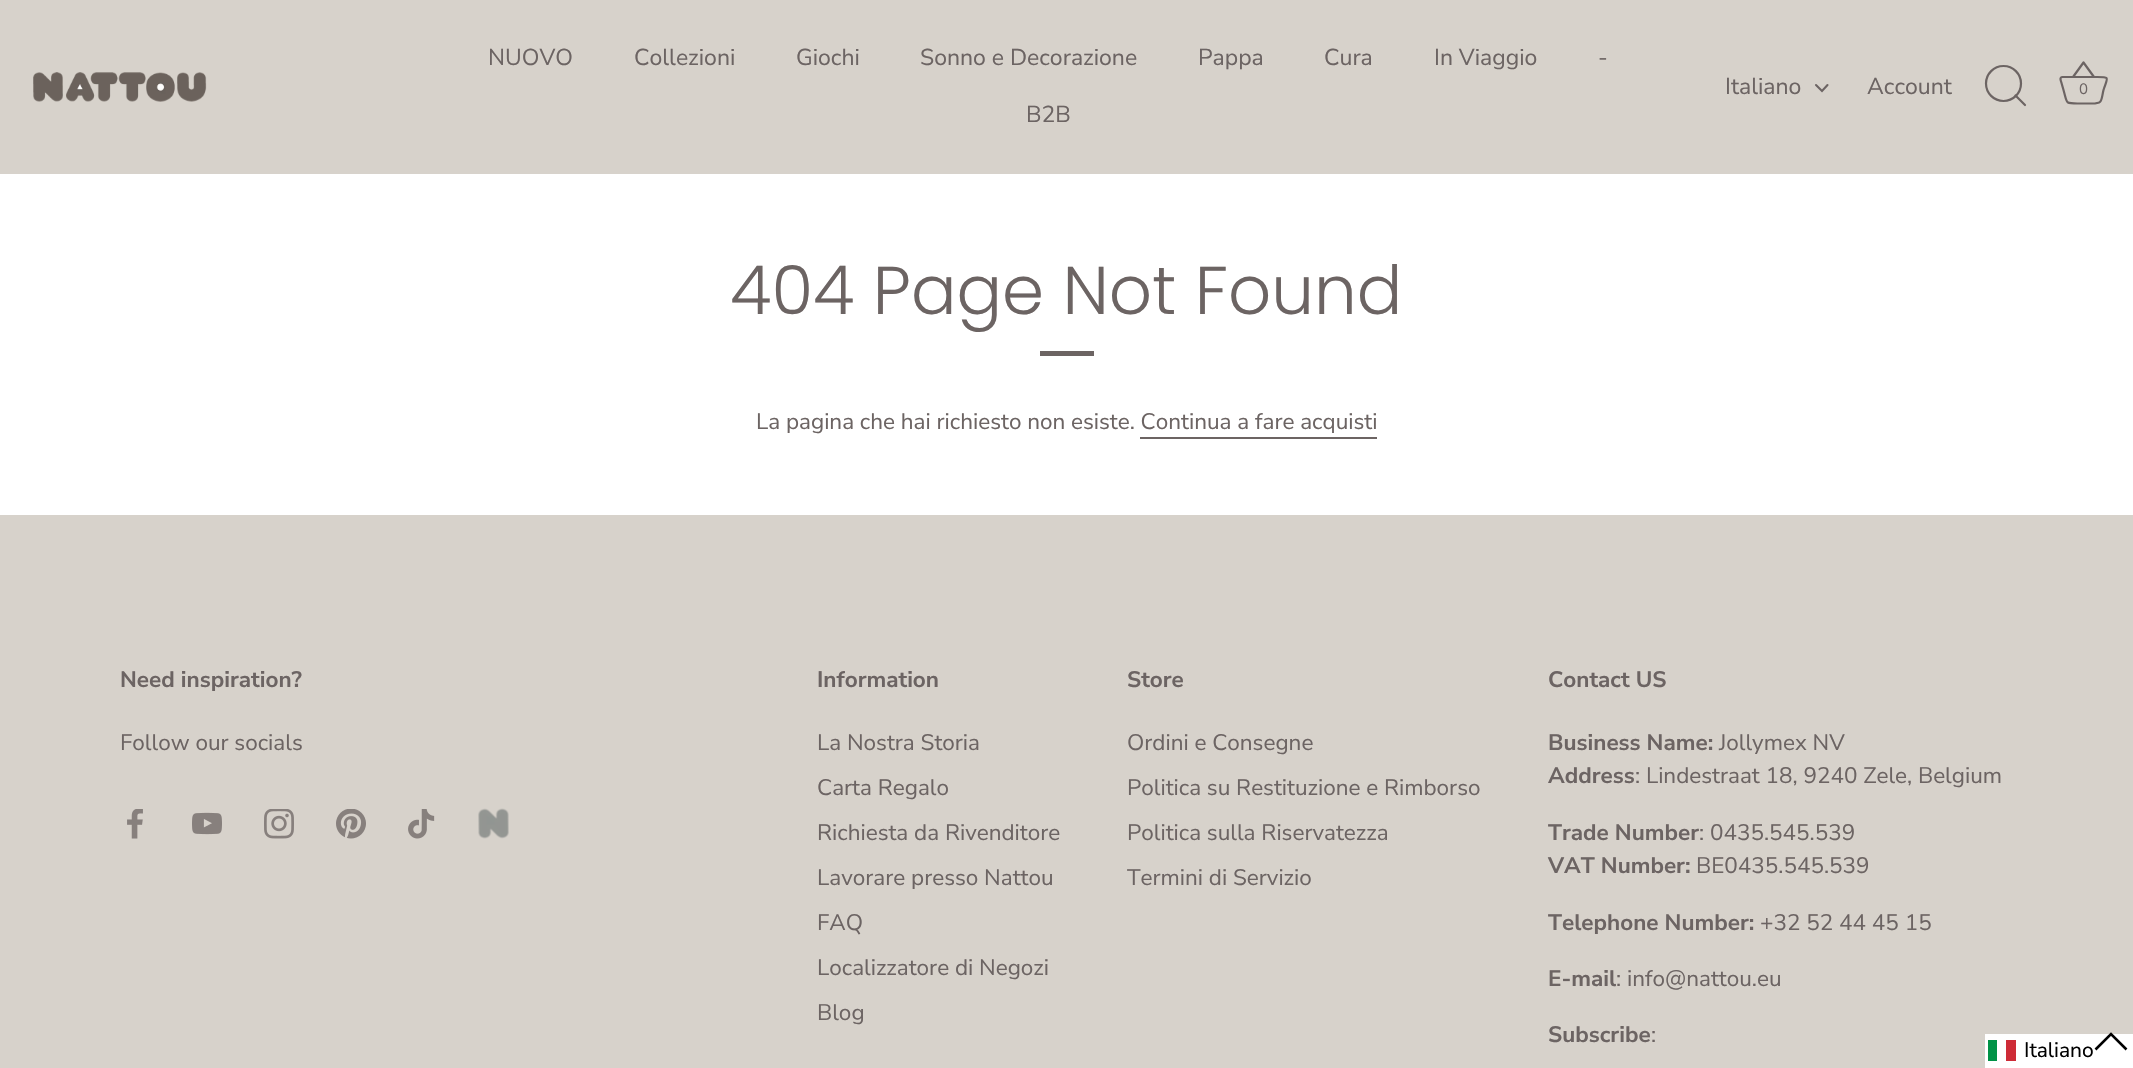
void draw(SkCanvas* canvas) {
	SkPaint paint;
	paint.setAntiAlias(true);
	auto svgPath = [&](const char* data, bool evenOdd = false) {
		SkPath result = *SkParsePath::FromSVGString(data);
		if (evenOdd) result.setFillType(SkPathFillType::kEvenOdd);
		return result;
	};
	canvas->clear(0xffffffff);
	paint.setColor(0xffd7d2cb);
	canvas->drawRect(SkRect::MakeXYWH(0, 0, 2133, 174), paint);
	canvas->drawImageRect(SkImages::DeferredFromEncodedData(SkData::MakeFromFileName("img1.png")), SkRect::MakeXYWH(33, 72, 174, 30), SkSamplingOptions());
	SkFont f1(fontMgr->matchFamilyStyle("Nunito Sans", SkFontStyle::Normal()), 23);
	f1.setSubpixel(true);
	paint.setColor(0xff6c6463);
	canvas->drawString("NUOVO", 488, 65, f1, paint);
	canvas->drawString("Collezioni", 634, 65, f1, paint);
	canvas->drawString("Giochi", 796, 65, f1, paint);
	canvas->drawString("Sonno e Decorazione", 920, 65, f1, paint);
	canvas->drawString("Pappa", 1198, 65, f1, paint);
	canvas->drawString("Cura", 1324, 65, f1, paint);
	canvas->drawString("In Viaggio", 1434, 65, f1, paint);
	canvas->drawString("-", 1598, 65, f1, paint);
	canvas->drawString("B2B", 1026, 122, f1, paint);
	canvas->drawString("Italiano", 1725, 94, f1, paint);
	paint.setStroke(true);
	paint.setStrokeWidth(2.1);
	paint.setStrokeCap(SkPaint::kRound_Cap);
	canvas->drawPath(svgPath("M1816 85L1822 91L1827.5 85"), paint);
	paint.setStroke(false);
	canvas->drawString("Account", 1867, 94, f1, paint);
	paint.setStroke(true);
	paint.setStrokeWidth(2.2);
	paint.setStrokeCap(SkPaint::kButt_Cap);
	canvas->drawCircle(2003.5, 83.5, 17.5, paint);
	paint.setStrokeCap(SkPaint::kRound_Cap);
	paint.setStrokeJoin(SkPaint::kRound_Join);
	canvas->drawPath(svgPath("M2025 105L2015.5 95.5"), paint);
	paint.setStrokeCap(SkPaint::kButt_Cap);
	canvas->drawPath(svgPath("M2062.5 77C2059 77 2061 81.5 2061.5 83L2063.5 90C2067.5 104 2064.5 103.5 2079 103.5H2092C2103 103.5 2101 100.5 2103.5 90C2107.5 77.5 2110.5 77 2097.5 77H2062.5M2073 77L2083.5 62.5L2094 77"), paint);
	SkFont f2(fontMgr->matchFamilyStyle("Nunito Sans", SkFontStyle::Normal()), 15);
	f2.setSubpixel(true);
	paint.setStroke(false);
	canvas->drawString("0", 2079, 94, f2, paint);
	SkFont f3(fontMgr->matchFamilyStyle("Poppins", SkFontStyle(300, SkFontStyle::kNormal_Width, SkFontStyle::kUpright_Slant)), 67.5);
	f3.setSubpixel(true);
	canvas->drawString("404 Page Not Found", 730, 314, f3, paint);
	canvas->drawRect(SkRect::MakeXYWH(1040, 351, 54, 5), paint);
	SkFont f4(fontMgr->matchFamilyStyle("Nunito Sans", SkFontStyle::Normal()), 22.5);
	f4.setSubpixel(true);
	canvas->drawString("La pagina che hai richiesto non esiste. Continua a fare acquisti", 756, 429, f4, paint);
	canvas->drawRect(SkRect::MakeXYWH(1140, 437, 237, 2), paint);
	paint.setColor(0xffd7d2cb);
	canvas->drawRect(SkRect::MakeXYWH(0, 515, 2133, 553), paint);
	SkFont f5(fontMgr->matchFamilyStyle("Nunito Sans", SkFontStyle::Bold()), 22.5);
	f5.setSubpixel(true);
	paint.setColor(0xff6c6463);
	canvas->drawString("Need inspiration?", 120, 687, f5, paint);
	canvas->drawString("Follow our socials", 120, 750, f4, paint);
	canvas->drawImageRect(SkImages::DeferredFromEncodedData(SkData::MakeFromFileName("img2.png")), SkRect::MakeXYWH(127, 809, 16, 30), SkSamplingOptions());
	canvas->drawImageRect(SkImages::DeferredFromEncodedData(SkData::MakeFromFileName("img3.png")), SkRect::MakeXYWH(192, 812, 30, 23), SkSamplingOptions());
	canvas->drawImageRect(SkImages::DeferredFromEncodedData(SkData::MakeFromFileName("img4.png")), SkRect::MakeXYWH(264, 809, 30, 30), SkSamplingOptions());
	canvas->drawImageRect(SkImages::DeferredFromEncodedData(SkData::MakeFromFileName("img5.png")), SkRect::MakeXYWH(336, 809, 30, 30), SkSamplingOptions());
	canvas->drawImageRect(SkImages::DeferredFromEncodedData(SkData::MakeFromFileName("img6.png")), SkRect::MakeXYWH(408, 809, 27, 30), SkSamplingOptions());
	canvas->drawImageRect(SkImages::DeferredFromEncodedData(SkData::MakeFromFileName("img7.png")), SkRect::MakeXYWH(478, 808, 31, 31), SkSamplingOptions());
	canvas->drawString("Information", 817, 687, f5, paint);
	canvas->drawString("La Nostra Storia", 817, 750, f4, paint);
	canvas->drawString("Carta Regalo", 817, 795, f4, paint);
	canvas->drawString("Richiesta da Rivenditore", 817, 840, f4, paint);
	canvas->drawString("Lavorare presso Nattou", 817, 885, f4, paint);
	canvas->drawString("FAQ", 817, 930, f4, paint);
	canvas->drawString("Localizzatore di Negozi", 817, 975, f4, paint);
	canvas->drawString("Blog", 817, 1020, f4, paint);
	canvas->drawString("Store", 1127, 687, f5, paint);
	canvas->drawString("Ordini e Consegne", 1127, 750, f4, paint);
	canvas->drawString("Politica su Restituzione e Rimborso", 1127, 795, f4, paint);
	canvas->drawString("Politica sulla Riservatezza", 1127, 840, f4, paint);
	canvas->drawString("Termini di Servizio", 1127, 885, f4, paint);
	canvas->drawString("Contact US", 1548, 687, f5, paint);
	canvas->drawString("Business Name:", 1548, 750, f5, paint);
	canvas->drawString("Jollymex NV", 1719, 750, f4, paint);
	canvas->drawString("Address", 1548, 783, f5, paint);
	canvas->drawString(": Lindestraat 18, 9240 Zele, Belgium", 1635, 783, f4, paint);
	canvas->drawString("Trade Number", 1548, 840, f5, paint);
	canvas->drawString(": 0435.545.539", 1699, 840, f4, paint);
	canvas->drawString("VAT Number:", 1548, 873, f5, paint);
	canvas->drawString("BE0435.545.539", 1696, 873, f4, paint);
	canvas->drawString("Telephone Number:", 1548, 930, f5, paint);
	canvas->drawString("+32 52 44 45 15", 1760, 930, f4, paint);
	canvas->drawString("E-mail", 1548, 986, f5, paint);
	canvas->drawString(": info@nattou.eu", 1616, 986, f4, paint);
	canvas->drawString("Subscribe", 1548, 1042, f5, paint);
	canvas->drawString(":", 1651, 1042, f4, paint);
	paint.setColor(0xffffffff);
	canvas->drawRect(SkRect::MakeXYWH(1985, 1034, 148, 34), paint);
	paint.setColor(0xff009246);
	canvas->drawRect(SkRect::MakeXYWH(1988, 1040, 9, 21), paint);
	paint.setColor(0xffce2b37);
	canvas->drawRect(SkRect::MakeXYWH(2006, 1040, 10, 21), paint);
	SkFont f6(fontMgr->matchFamilyStyle("Nunito Sans", SkFontStyle::Normal()), 21);
	f6.setSubpixel(true);
	paint.setColor(0xff000000);
	canvas->drawString("Italiano", 2024, 1057, f6, paint);
	paint.setStroke(true);
	paint.setStrokeWidth(2.6);
	paint.setStrokeJoin(SkPaint::kMiter_Join);
	canvas->drawPath(svgPath("M2126.5 1049.5L2111 1034L2095.5 1049.5"), paint);
}
